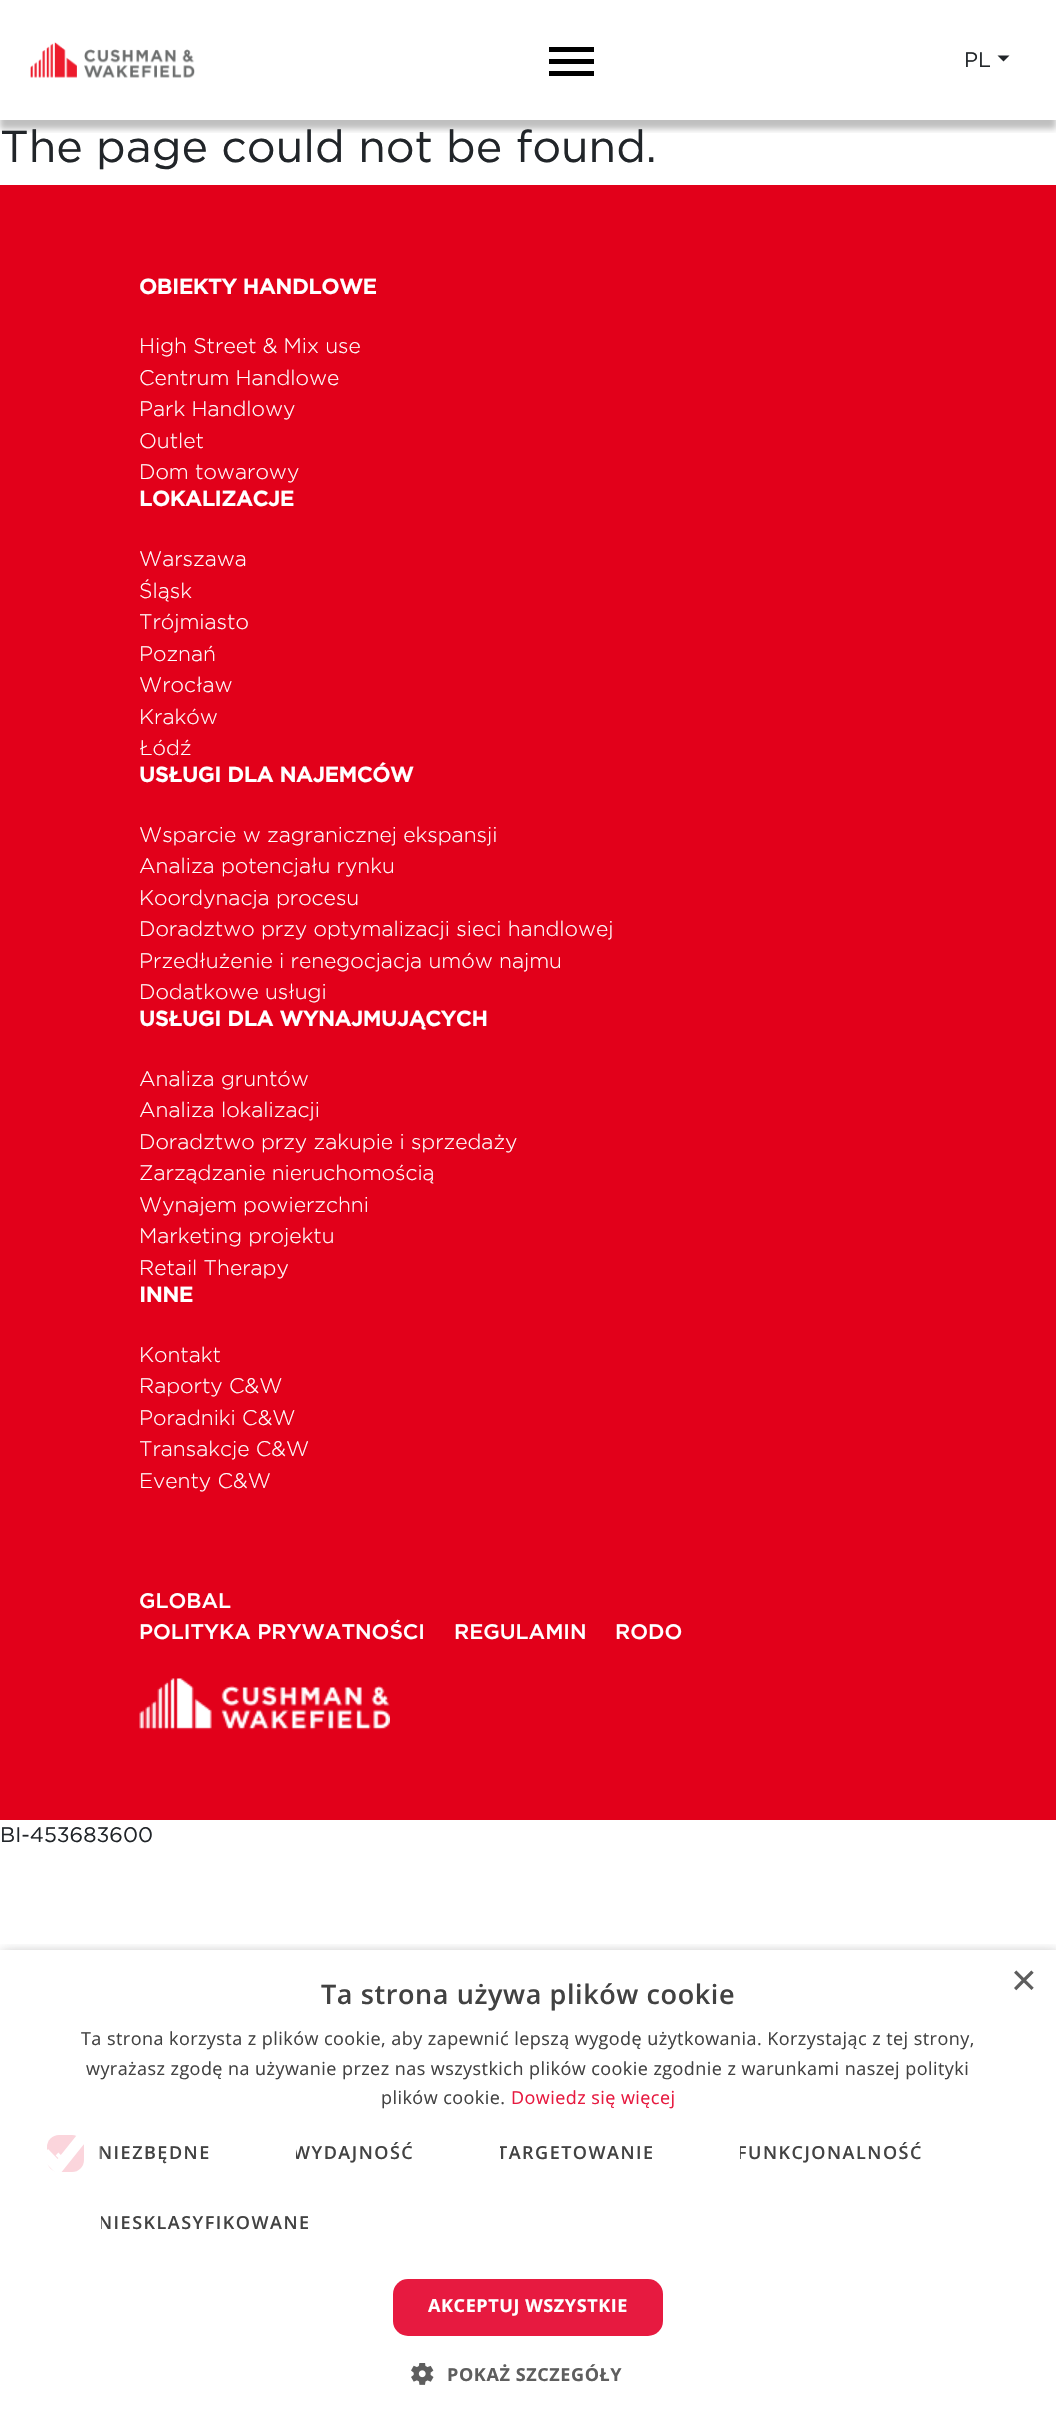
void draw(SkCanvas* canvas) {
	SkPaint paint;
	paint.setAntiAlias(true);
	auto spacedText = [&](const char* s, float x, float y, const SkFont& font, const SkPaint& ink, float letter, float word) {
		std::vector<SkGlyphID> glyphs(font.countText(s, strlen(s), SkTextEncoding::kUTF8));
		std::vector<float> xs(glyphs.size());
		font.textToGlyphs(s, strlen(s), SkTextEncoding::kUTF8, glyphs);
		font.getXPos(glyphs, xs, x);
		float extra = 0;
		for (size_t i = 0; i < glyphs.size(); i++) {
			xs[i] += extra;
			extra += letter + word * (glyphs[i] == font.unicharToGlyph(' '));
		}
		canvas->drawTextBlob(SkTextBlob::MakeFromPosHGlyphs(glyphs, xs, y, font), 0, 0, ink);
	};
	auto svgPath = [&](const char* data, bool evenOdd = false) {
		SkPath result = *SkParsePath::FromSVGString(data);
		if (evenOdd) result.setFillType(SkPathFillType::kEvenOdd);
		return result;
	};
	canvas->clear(0xffffffff);
	canvas->save();
	canvas->clipRect(SkRect::MakeXYWH(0, 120, 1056, 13));
	paint.setColor(0x40000000);
	paint.setMaskFilter(SkMaskFilter::MakeBlur(kNormal_SkBlurStyle, 3));
	canvas->drawRect(SkRect::MakeXYWH(0, 9, 1056, 120), paint);
	paint.setMaskFilter(nullptr);
	canvas->restore();
	canvas->drawImageRect(SkImages::DeferredFromEncodedData(SkData::MakeFromFileName("img1.png")), SkRect::MakeXYWH(30, 42, 165, 36), SkSamplingOptions());
	paint.setColor(0xff000000);
	canvas->drawRect(SkRect::MakeXYWH(549, 47, 45, 5), paint);
	canvas->drawRect(SkRect::MakeXYWH(549, 59, 45, 5), paint);
	canvas->drawRect(SkRect::MakeXYWH(549, 71, 45, 5), paint);
	SkFont f1(fontMgr->matchFamilyStyle("Gotham", SkFontStyle::Normal()), 21);
	f1.setSubpixel(true);
	paint.setColor(0xff212529);
	canvas->drawString("PL", 964, 67, f1, paint);
	canvas->drawPath(svgPath("M997.5 55.5H1009.5L1003.5 61.5Z"), paint);
	SkFont f2(fontMgr->matchFamilyStyle("Gotham", SkFontStyle::Normal()), 44.75);
	f2.setSubpixel(true);
	canvas->drawString("The page could not be found.", 0, 162, f2, paint);
	paint.setColor(0xffe2001a);
	canvas->drawRect(SkRect::MakeXYWH(0, 185, 1056, 1635), paint);
	SkFont f3(fontMgr->matchFamilyStyle("Gotham", SkFontStyle::Bold()), 21);
	f3.setSubpixel(true);
	paint.setColor(0xffffffff);
	canvas->drawString("OBIEKTY HANDLOWE", 139, 294, f3, paint);
	SkFont f4(fontMgr->matchFamilyStyle("Gotham", SkFontStyle(300, SkFontStyle::kNormal_Width, SkFontStyle::kUpright_Slant)), 21);
	f4.setSubpixel(true);
	canvas->drawString("High Street & Mix use", 139, 353, f4, paint);
	canvas->drawString("Centrum Handlowe", 139, 385, f4, paint);
	canvas->drawString("Park Handlowy", 139, 416, f4, paint);
	canvas->drawString("Outlet", 139, 448, f4, paint);
	canvas->drawString("Dom towarowy", 139, 479, f4, paint);
	canvas->drawString("LOKALIZACJE", 139, 506, f3, paint);
	canvas->drawString("Warszawa", 139, 566, f4, paint);
	canvas->drawString("Śląsk", 139, 598, f4, paint);
	canvas->drawString("Trójmiasto", 139, 629, f4, paint);
	canvas->drawString("Poznań", 139, 661, f4, paint);
	canvas->drawString("Wrocław", 139, 692, f4, paint);
	canvas->drawString("Kraków", 139, 724, f4, paint);
	canvas->drawString("Łódź", 139, 755, f4, paint);
	canvas->drawString("USŁUGI DLA NAJEMCÓW", 139, 782, f3, paint);
	canvas->drawString("Wsparcie w zagranicznej ekspansji", 139, 842, f4, paint);
	canvas->drawString("Analiza potencjału rynku", 139, 873, f4, paint);
	canvas->drawString("Koordynacja procesu", 139, 905, f4, paint);
	canvas->drawString("Doradztwo przy optymalizacji sieci handlowej", 139, 936, f4, paint);
	canvas->drawString("Przedłużenie i renegocjacja umów najmu", 139, 968, f4, paint);
	canvas->drawString("Dodatkowe usługi", 139, 999, f4, paint);
	canvas->drawString("USŁUGI DLA WYNAJMUJĄCYCH", 139, 1026, f3, paint);
	canvas->drawString("Analiza gruntów", 139, 1086, f4, paint);
	canvas->drawString("Analiza lokalizacji", 139, 1117, f4, paint);
	canvas->drawString("Doradztwo przy zakupie i sprzedaży", 139, 1149, f4, paint);
	canvas->drawString("Zarządzanie nieruchomością", 139, 1180, f4, paint);
	canvas->drawString("Wynajem powierzchni", 139, 1212, f4, paint);
	canvas->drawString("Marketing projektu", 139, 1243, f4, paint);
	canvas->drawString("Retail Therapy", 139, 1275, f4, paint);
	canvas->drawString("INNE", 139, 1302, f3, paint);
	canvas->drawString("Kontakt", 139, 1362, f4, paint);
	canvas->drawString("Raporty C&W", 139, 1393, f4, paint);
	canvas->drawString("Poradniki C&W", 139, 1425, f4, paint);
	canvas->drawString("Transakcje C&W", 139, 1456, f4, paint);
	canvas->drawString("Eventy C&W", 139, 1488, f4, paint);
	SkFont f5(fontMgr->matchFamilyStyle("Gotham", SkFontStyle(500, SkFontStyle::kNormal_Width, SkFontStyle::kUpright_Slant)), 21);
	f5.setSubpixel(true);
	canvas->drawString("GLOBAL", 139, 1608, f5, paint);
	canvas->drawString("POLITYKA PRYWATNOŚCI", 139, 1639, f5, paint);
	canvas->drawString("REGULAMIN", 454, 1639, f5, paint);
	canvas->drawString("RODO", 615, 1639, f5, paint);
	canvas->drawImageRect(SkImages::DeferredFromEncodedData(SkData::MakeFromFileName("img2.png")), SkRect::MakeXYWH(139, 1678, 251, 52), SkSamplingOptions());
	paint.setColor(0xff212529);
	canvas->drawString("BI-453683600", 0, 1842, f1, paint);
	canvas->save();
	canvas->clipRect(SkRect::MakeXYWH(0, 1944, 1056, 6));
	paint.setColor(0x591a1a1a);
	paint.setMaskFilter(SkMaskFilter::MakeBlur(kNormal_SkBlurStyle, 6));
	canvas->drawRect(SkRect::MakeXYWH(2, 1953, 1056, 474), paint);
	paint.setMaskFilter(nullptr);
	canvas->restore();
	SkFont f6(fontMgr->matchFamilyStyle("Liberation Sans", SkFontStyle::Normal()), 44);
	f6.setSubpixel(true);
	paint.setColor(0xff5e5e5e);
	canvas->drawString("×", 1011, 1995, f6, paint);
	SkFont f7(fontMgr->matchFamilyStyle("Open Sans", SkFontStyle(600, SkFontStyle::kNormal_Width, SkFontStyle::kUpright_Slant)), 27);
	f7.setSubpixel(true);
	paint.setColor(0xff424242);
	spacedText("Ta strona używa plików cookie", 321, 2004, f7, paint, 0.6, 0);
	SkFont f8(fontMgr->matchFamilyStyle("Open Sans", SkFontStyle::Normal()), 18);
	f8.setSubpixel(true);
	spacedText("Ta strona korzysta z plików cookie, aby zapewnić lepszą wygodę użytkowania. Korzystając z tej strony,", 81, 2045, f8, paint, 0.45, 0);
	spacedText("wyrażasz zgodę na używanie przez nas wszystkich plików cookie zgodnie z warunkami naszej polityki", 86, 2075, f8, paint, 0.45, 0);
	spacedText("plików cookie.", 381, 2104, f8, paint, 0.45, 0);
	paint.setColor(0xffe71a40);
	spacedText("Dowiedz się więcej", 511, 2104, f8, paint, 0.45, 0);
	paint.setColor(0xfff9c3cd);
	canvas->drawRoundRect(SkRect::MakeXYWH(47, 2135, 37, 37), 12, 12, paint);
	paint.setStroke(true);
	paint.setStrokeWidth(3.9);
	paint.setColor(0xffffffff);
	canvas->drawPath(svgPath("M57 2154L62 2159L73.5 2147.5"), paint);
	SkFont f9(fontMgr->matchFamilyStyle("Open Sans", SkFontStyle(600, SkFontStyle::kNormal_Width, SkFontStyle::kUpright_Slant)), 18);
	f9.setSubpixel(true);
	paint.setStroke(false);
	paint.setColor(0xff424242);
	spacedText("NIEZBĘDNE", 98, 2159, f9, paint, 1.5, 0);
	paint.setColor(0x4dffffff);
	canvas->drawRoundRect(SkRect::MakeXYWH(30, 2118, 71, 71), 3, 3, paint);
	paint.setStroke(true);
	paint.setStrokeWidth(11.3);
	paint.setColor(0xffffffff);
	canvas->drawPath(svgPath("M44 2153L58 2167.5L86.5 2132"), paint);
	paint.setStroke(false);
	paint.setColor(0xff424242);
	spacedText("WYDAJNOŚĆ", 293, 2159, f9, paint, 1.5, 0);
	paint.setColor(0xffffffff);
	canvas->drawRoundRect(SkRect::MakeXYWH(225, 2118, 71, 71), 3, 3, paint);
	paint.setColor(0xff424242);
	spacedText("TARGETOWANIE", 497, 2159, f9, paint, 1.5, 0);
	paint.setColor(0xffffffff);
	canvas->drawRoundRect(SkRect::MakeXYWH(429, 2118, 71, 71), 3, 3, paint);
	paint.setColor(0xff424242);
	spacedText("FUNKCJONALNOŚĆ", 737, 2159, f9, paint, 1.5, 0);
	paint.setColor(0xffffffff);
	canvas->drawRoundRect(SkRect::MakeXYWH(669, 2118, 71, 71), 3, 3, paint);
	paint.setColor(0xff424242);
	spacedText("NIESKLASYFIKOWANE", 98, 2229, f9, paint, 1.5, 0);
	paint.setColor(0xffffffff);
	canvas->drawRoundRect(SkRect::MakeXYWH(30, 2189, 71, 70), 3, 3, paint);
	paint.setColor(0xffe71a40);
	canvas->drawRoundRect(SkRect::MakeXYWH(393, 2279, 270, 57), 15, 15, paint);
	SkFont f10(fontMgr->matchFamilyStyle("Open Sans", SkFontStyle::Bold()), 18);
	f10.setSubpixel(true);
	paint.setColor(0xffffffff);
	spacedText("AKCEPTUJ WSZYSTKIE", 428, 2312, f10, paint, 0.6, 0);
	canvas->drawImageRect(SkImages::DeferredFromEncodedData(SkData::MakeFromFileName("img3.png")), SkRect::MakeXYWH(411, 2363, 23, 22), SkSamplingOptions());
	paint.setColor(0xff5e5e5e);
	spacedText("POKAŻ SZCZEGÓŁY", 447, 2381, f10, paint, 0.6, 0);
}
